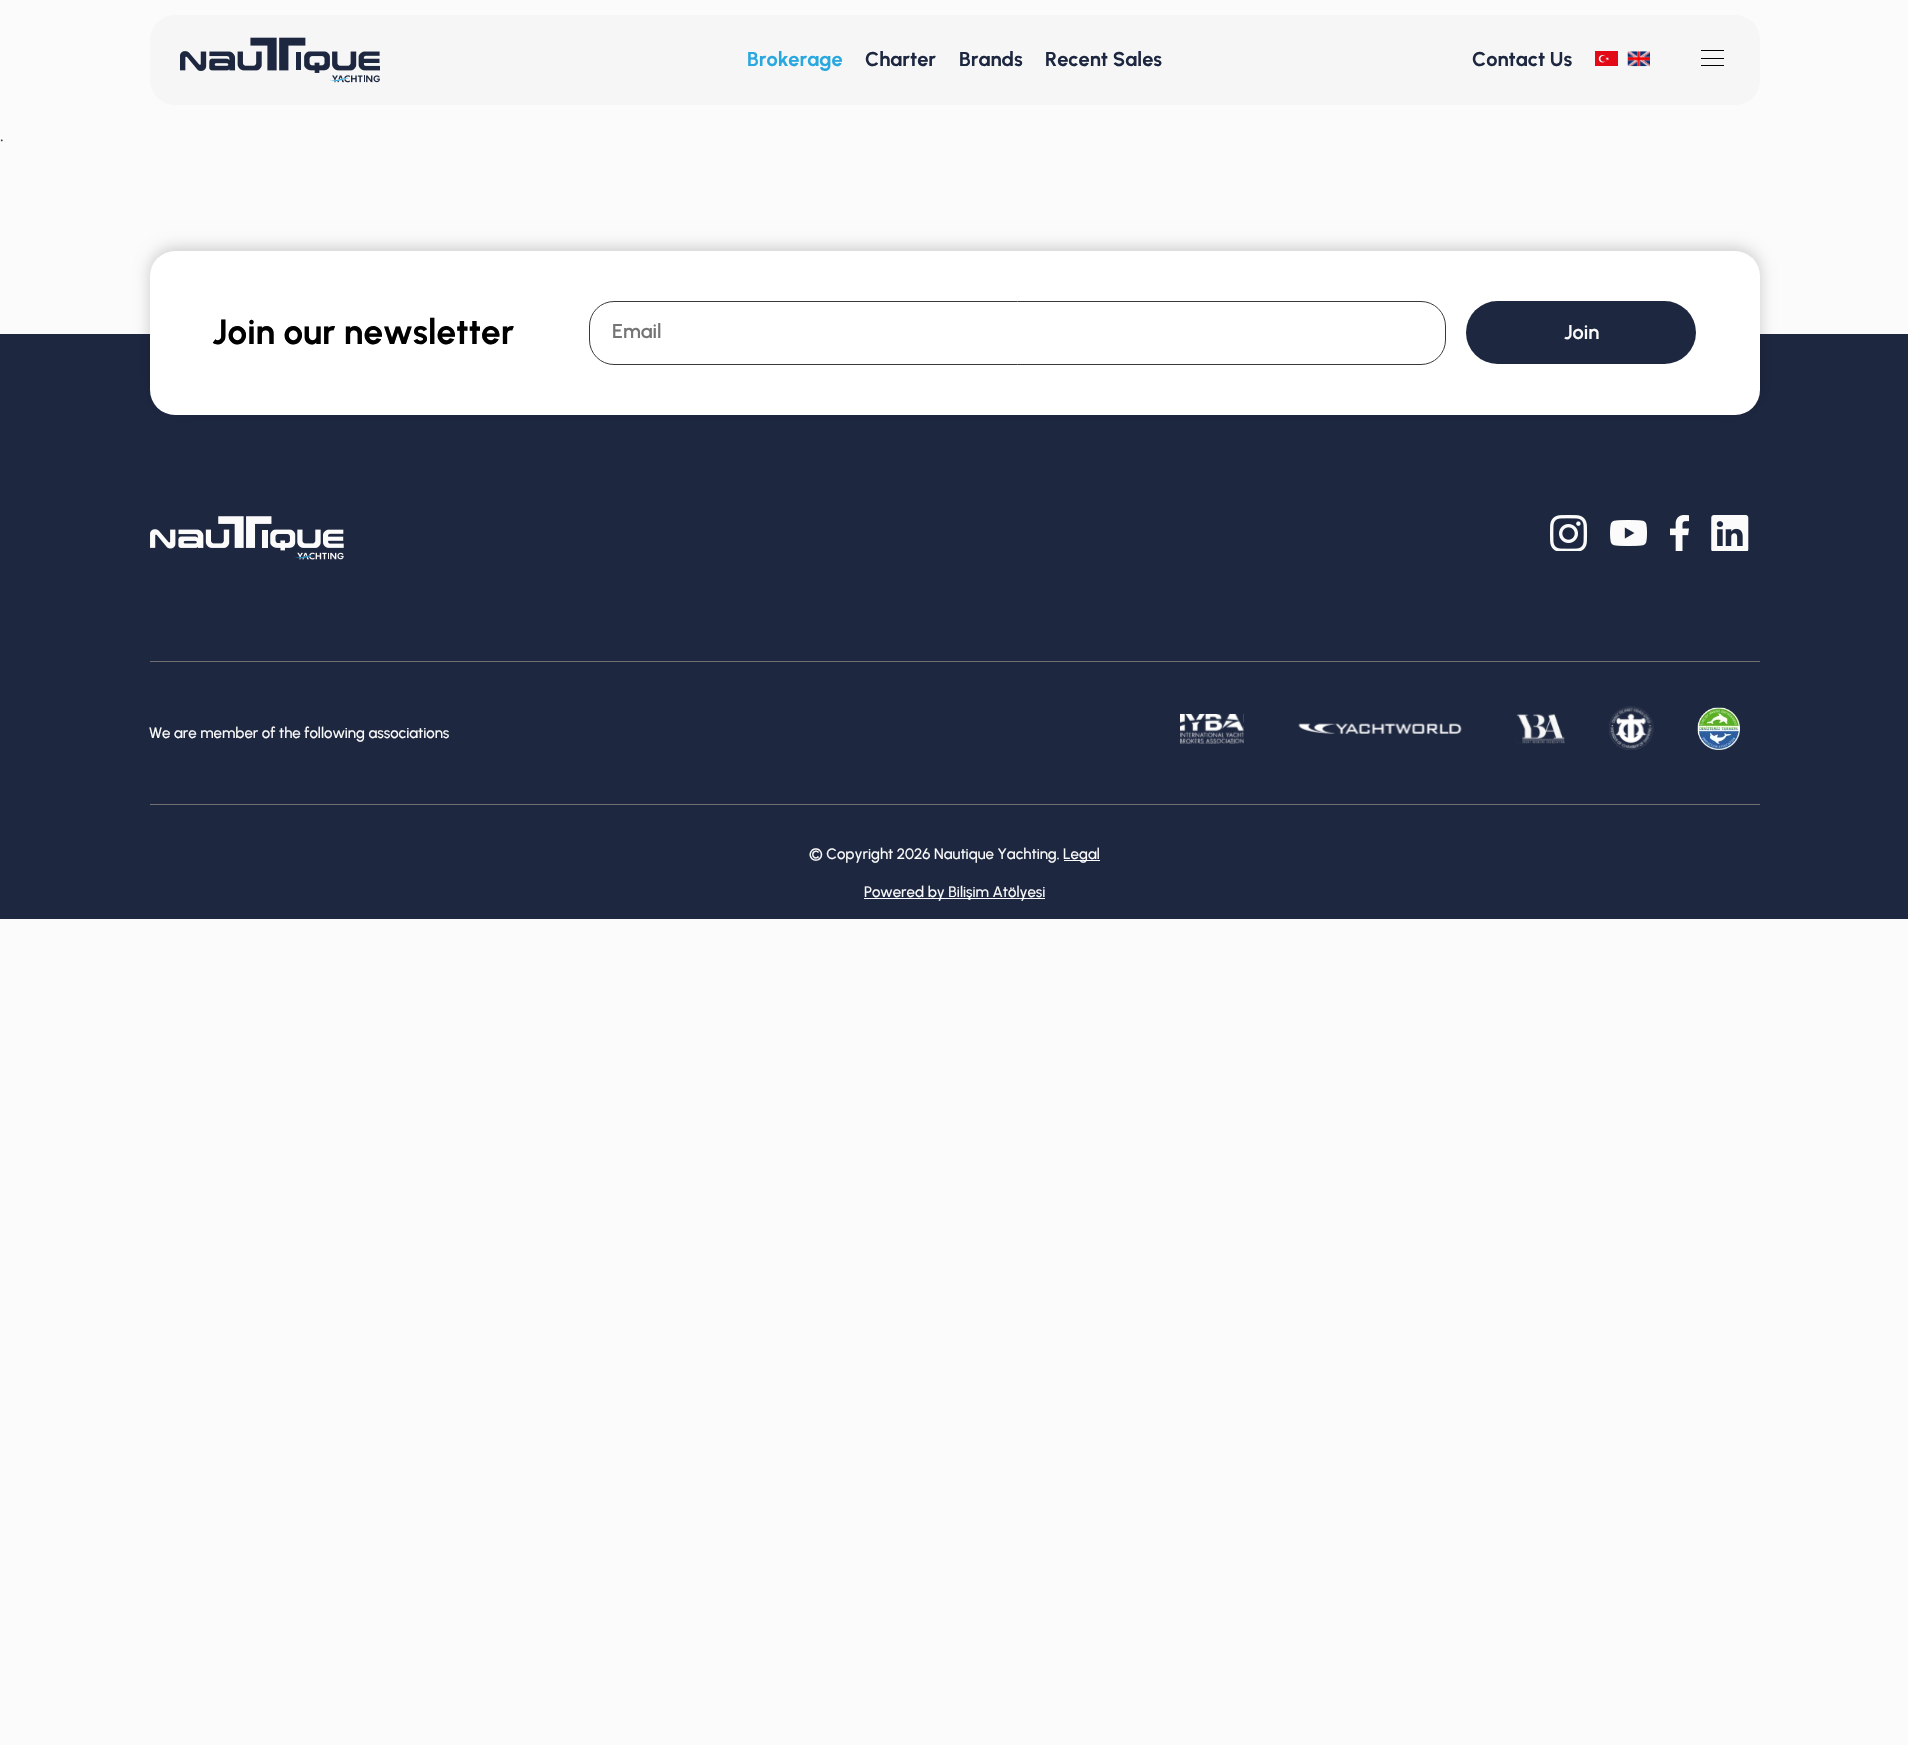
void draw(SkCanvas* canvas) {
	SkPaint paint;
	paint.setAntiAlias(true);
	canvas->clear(0xfffbfbfb);
	paint.setColor(0xfff6f6f6);
	canvas->drawRoundRect(SkRect::MakeXYWH(150, 15, 1610, 90), 25, 25, paint);
	canvas->drawImageRect(SkImages::DeferredFromEncodedData(SkData::MakeFromFileName("img1.png")), SkRect::MakeXYWH(180, 37, 200, 46), SkSamplingOptions());
	SkFont f1(fontMgr->matchFamilyStyle("Urbanist", SkFontStyle::Bold()), 20);
	f1.setSubpixel(true);
	paint.setColor(0xff29a7df);
	canvas->drawString("Brokerage", 747, 66, f1, paint);
	paint.setColor(0xff1d2740);
	canvas->drawString("Charter", 865, 66, f1, paint);
	canvas->drawString("Brands", 959, 66, f1, paint);
	canvas->drawString("Recent Sales", 1045, 66, f1, paint);
	canvas->drawString("Contact Us", 1472, 66, f1, paint);
	canvas->drawImageRect(SkImages::DeferredFromEncodedData(SkData::MakeFromFileName("img2.png")), SkRect::MakeXYWH(1595, 51, 23, 15), SkSamplingOptions());
	canvas->drawImageRect(SkImages::DeferredFromEncodedData(SkData::MakeFromFileName("img3.png")), SkRect::MakeXYWH(1627, 51, 23, 16), SkSamplingOptions());
	paint.setColor(0xff000000);
	canvas->drawRect(SkRect::MakeXYWH(1701, 58, 23, 1), paint);
	canvas->drawRect(SkRect::MakeXYWH(1701, 50, 23, 1), paint);
	canvas->drawRect(SkRect::MakeXYWH(1701, 65, 23, 1), paint);
	SkFont f2(fontMgr->matchFamilyStyle("Urbanist", SkFontStyle(500, SkFontStyle::kNormal_Width, SkFontStyle::kUpright_Slant)), 20);
	f2.setSubpixel(true);
	paint.setColor(0xff393939);
	canvas->drawString(".", 0, 141, f2, paint);
	paint.setColor(0xff1d2740);
	canvas->drawRect(SkRect::MakeXYWH(0, 334, 1908, 585), paint);
	paint.setColor(0x30000000);
	paint.setMaskFilter(SkMaskFilter::MakeBlur(kNormal_SkBlurStyle, 7.5));
	canvas->drawRoundRect(SkRect::MakeXYWH(150, 248, 1610, 163), 25, 25, paint);
	paint.setMaskFilter(nullptr);
	paint.setColor(0xffffffff);
	canvas->drawRoundRect(SkRect::MakeXYWH(150, 251, 1610, 164), 25, 25, paint);
	SkFont f3(fontMgr->matchFamilyStyle("Urbanist", SkFontStyle::Bold()), 35);
	f3.setSubpixel(true);
	paint.setColor(0xff000000);
	canvas->drawString("Join our newsletter", 212, 344, f3, paint);
	paint.setStroke(true);
	paint.setStrokeWidth(1);
	paint.setColor(0xff393939);
	canvas->drawRoundRect(SkRect::MakeXYWH(589.5, 301.5, 856, 63), 24.5, 24.5, paint);
	SkFont f4(fontMgr->matchFamilyStyle("Urbanist", SkFontStyle(600, SkFontStyle::kNormal_Width, SkFontStyle::kUpright_Slant)), 20);
	f4.setSubpixel(true);
	paint.setStroke(false);
	paint.setColor(0xff757575);
	canvas->drawString("Email", 612, 338, f4, paint);
	paint.setColor(0xff1d2740);
	canvas->drawRoundRect(SkRect::MakeXYWH(1466, 301, 230, 63), 31.5, 31.5, paint);
	paint.setColor(0xfffbfbfb);
	canvas->drawString("Join", 1564, 339, f4, paint);
	canvas->drawImageRect(SkImages::DeferredFromEncodedData(SkData::MakeFromFileName("img4.png")), SkRect::MakeXYWH(150, 516, 194, 44), SkSamplingOptions());
	canvas->drawImageRect(SkImages::DeferredFromEncodedData(SkData::MakeFromFileName("img5.png")), SkRect::MakeXYWH(1550, 515, 38, 36), SkSamplingOptions());
	canvas->drawImageRect(SkImages::DeferredFromEncodedData(SkData::MakeFromFileName("img6.png")), SkRect::MakeXYWH(1610, 520, 37, 26), SkSamplingOptions());
	canvas->drawImageRect(SkImages::DeferredFromEncodedData(SkData::MakeFromFileName("img7.png")), SkRect::MakeXYWH(1670, 515, 19, 36), SkSamplingOptions());
	canvas->drawImageRect(SkImages::DeferredFromEncodedData(SkData::MakeFromFileName("img8.png")), SkRect::MakeXYWH(1711, 515, 38, 36), SkSamplingOptions());
	paint.setColor(0xff707070);
	canvas->drawRect(SkRect::MakeXYWH(150, 661, 1610, 1), paint);
	canvas->drawRect(SkRect::MakeXYWH(150, 804, 1610, 1), paint);
	SkFont f5(fontMgr->matchFamilyStyle("Urbanist", SkFontStyle(500, SkFontStyle::kNormal_Width, SkFontStyle::kUpright_Slant)), 15);
	f5.setSubpixel(true);
	paint.setColor(0xfffbfbfb);
	canvas->drawString("We are member of the following associations", 149, 738, f5, paint);
	canvas->drawImageRect(SkImages::DeferredFromEncodedData(SkData::MakeFromFileName("img9.png")), SkRect::MakeXYWH(1180, 713, 64, 31), SkSamplingOptions());
	canvas->drawImageRect(SkImages::DeferredFromEncodedData(SkData::MakeFromFileName("img10.png")), SkRect::MakeXYWH(1298, 723, 164, 11), SkSamplingOptions());
	canvas->drawImageRect(SkImages::DeferredFromEncodedData(SkData::MakeFromFileName("img11.png")), SkRect::MakeXYWH(1516, 714, 49, 30), SkSamplingOptions());
	canvas->drawImageRect(SkImages::DeferredFromEncodedData(SkData::MakeFromFileName("img12.png")), SkRect::MakeXYWH(1609, 706, 45, 44), SkSamplingOptions());
	canvas->drawImageRect(SkImages::DeferredFromEncodedData(SkData::MakeFromFileName("img13.png")), SkRect::MakeXYWH(1697, 707, 43, 43), SkSamplingOptions());
	canvas->drawString("© Copyright 2026 Nautique Yachting.", 809, 859, f5, paint);
	canvas->drawRect(SkRect::MakeXYWH(1064, 860, 36, 1), paint);
	canvas->drawString("Legal", 1063, 859, f5, paint);
	canvas->drawRect(SkRect::MakeXYWH(864, 898, 181, 1), paint);
	canvas->drawString("Powered by Bilişim Atölyesi", 864, 897, f5, paint);
}
